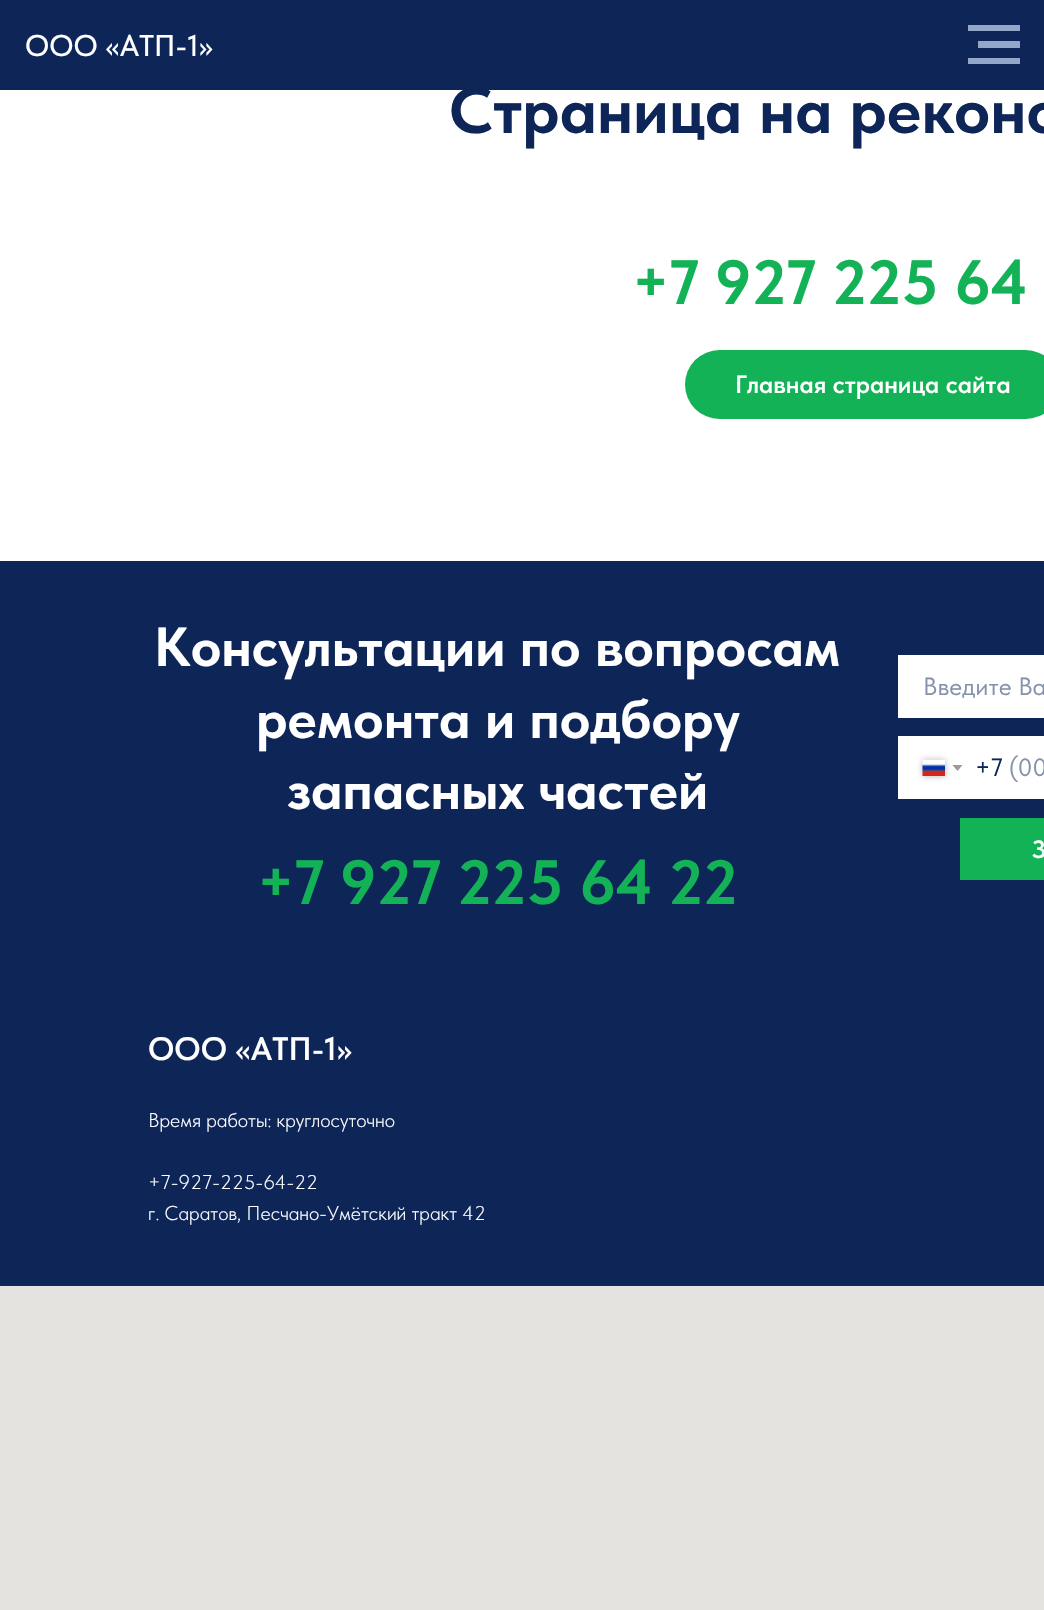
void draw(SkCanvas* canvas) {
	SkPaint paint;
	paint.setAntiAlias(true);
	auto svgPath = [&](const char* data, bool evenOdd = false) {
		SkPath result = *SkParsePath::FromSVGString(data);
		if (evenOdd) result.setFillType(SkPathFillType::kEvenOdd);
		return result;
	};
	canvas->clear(0xffffffff);
	paint.setColor(0xff0d2557);
	canvas->drawRect(SkRect::MakeXYWH(0, 0, 1044, 90), paint);
	SkFont f1(fontMgr->matchFamilyStyle("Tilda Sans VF", SkFontStyle(500, SkFontStyle::kNormal_Width, SkFontStyle::kUpright_Slant)), 30);
	f1.setSubpixel(true);
	paint.setColor(0xffffffff);
	canvas->drawString("ООО «АТП-1»", 25, 56, f1, paint);
	paint.setColor(0xff93a8c9);
	canvas->drawRect(SkRect::MakeXYWH(968, 25, 52, 6), paint);
	canvas->drawRect(SkRect::MakeXYWH(978, 41, 42, 7), paint);
	canvas->drawRect(SkRect::MakeXYWH(968, 58, 52, 6), paint);
	SkFont f2(fontMgr->matchFamilyStyle("Tilda Sans VF", SkFontStyle::Bold()), 65);
	f2.setSubpixel(true);
	paint.setColor(0xff0d2557);
	canvas->drawString("Страница на реконс", 449, 133, f2, paint);
	SkFont f3(fontMgr->matchFamilyStyle("Tilda Sans VF", SkFontStyle::Bold()), 62.5);
	f3.setSubpixel(true);
	paint.setColor(0xff13b257);
	canvas->drawString("+7 927 225 64", 632, 304, f3, paint);
	canvas->drawRoundRect(SkRect::MakeXYWH(685, 350, 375, 69), 34.5, 34.5, paint);
	SkFont f4(fontMgr->matchFamilyStyle("Tilda Sans VF", SkFontStyle(600, SkFontStyle::kNormal_Width, SkFontStyle::kUpright_Slant)), 25);
	f4.setSubpixel(true);
	paint.setColor(0xffffffff);
	canvas->drawString("Главная страница сайта", 735, 393, f4, paint);
	paint.setColor(0xff0d2557);
	canvas->drawRect(SkRect::MakeXYWH(0, 561, 1044, 725), paint);
	SkFont f5(fontMgr->matchFamilyStyle("Tilda Sans VF", SkFontStyle::Bold()), 55);
	f5.setSubpixel(true);
	paint.setColor(0xffffffff);
	canvas->drawString("Консультации по вопросам", 154, 666, f5, paint);
	canvas->drawString("ремонта и подбору", 256, 738, f5, paint);
	canvas->drawString("запасных частей", 287, 809, f5, paint);
	canvas->drawRect(SkRect::MakeXYWH(898, 655, 146, 63), paint);
	SkFont f6(fontMgr->matchFamilyStyle("Tilda Sans VF", SkFontStyle::Normal()), 25);
	f6.setSubpixel(true);
	paint.setColor(0xff8692ab);
	canvas->drawString("Введите Ва", 923, 695, f6, paint);
	paint.setColor(0xffffffff);
	canvas->drawRect(SkRect::MakeXYWH(898, 736, 146, 63), paint);
	paint.setColor(0x4d000000);
	paint.setMaskFilter(SkMaskFilter::MakeBlur(kNormal_SkBlurStyle, 3));
	canvas->drawRect(SkRect::MakeXYWH(923, 760, 22, 16), paint);
	paint.setMaskFilter(nullptr);
	canvas->drawImageRect(SkImages::DeferredFromEncodedData(SkData::MakeFromFileName("img1.png")), SkRect::MakeXYWH(922, 759, 23, 17), SkSamplingOptions());
	paint.setColor(0xff9a9a9a);
	canvas->drawPath(svgPath("M952.5 765H962.5L957.5 771Z"), paint);
	paint.setColor(0xff0d2557);
	canvas->drawString("+7", 975, 776, f6, paint);
	paint.setColor(0xff8692ab);
	canvas->drawString("(00", 1009, 776, f6, paint);
	paint.setColor(0xff13b257);
	canvas->drawRect(SkRect::MakeXYWH(960, 818, 84, 62), paint);
	paint.setColor(0xffffffff);
	canvas->drawString("З", 1032, 858, f4, paint);
	paint.setColor(0xff13b257);
	canvas->drawString("+7 927 225 64 22", 257, 904, f3, paint);
	SkFont f7(fontMgr->matchFamilyStyle("Tilda Sans VF", SkFontStyle(600, SkFontStyle::kNormal_Width, SkFontStyle::kUpright_Slant)), 32.5);
	f7.setSubpixel(true);
	paint.setColor(0xffffffff);
	canvas->drawString("ООО «АТП-1»", 148, 1060, f7, paint);
	SkFont f8(fontMgr->matchFamilyStyle("Tilda Sans VF", SkFontStyle(300, SkFontStyle::kNormal_Width, SkFontStyle::kUpright_Slant)), 20);
	f8.setSubpixel(true);
	canvas->drawString("Время работы: круглосуточно", 148, 1127, f8, paint);
	canvas->drawString("+7-927-225-64-22", 148, 1189, f8, paint);
	canvas->drawString("г. Саратов, Песчано-Умётский тракт 42", 148, 1220, f8, paint);
	paint.setColor(0xffe5e3df);
	canvas->drawRect(SkRect::MakeXYWH(0, 1286, 1044, 324), paint);
}
